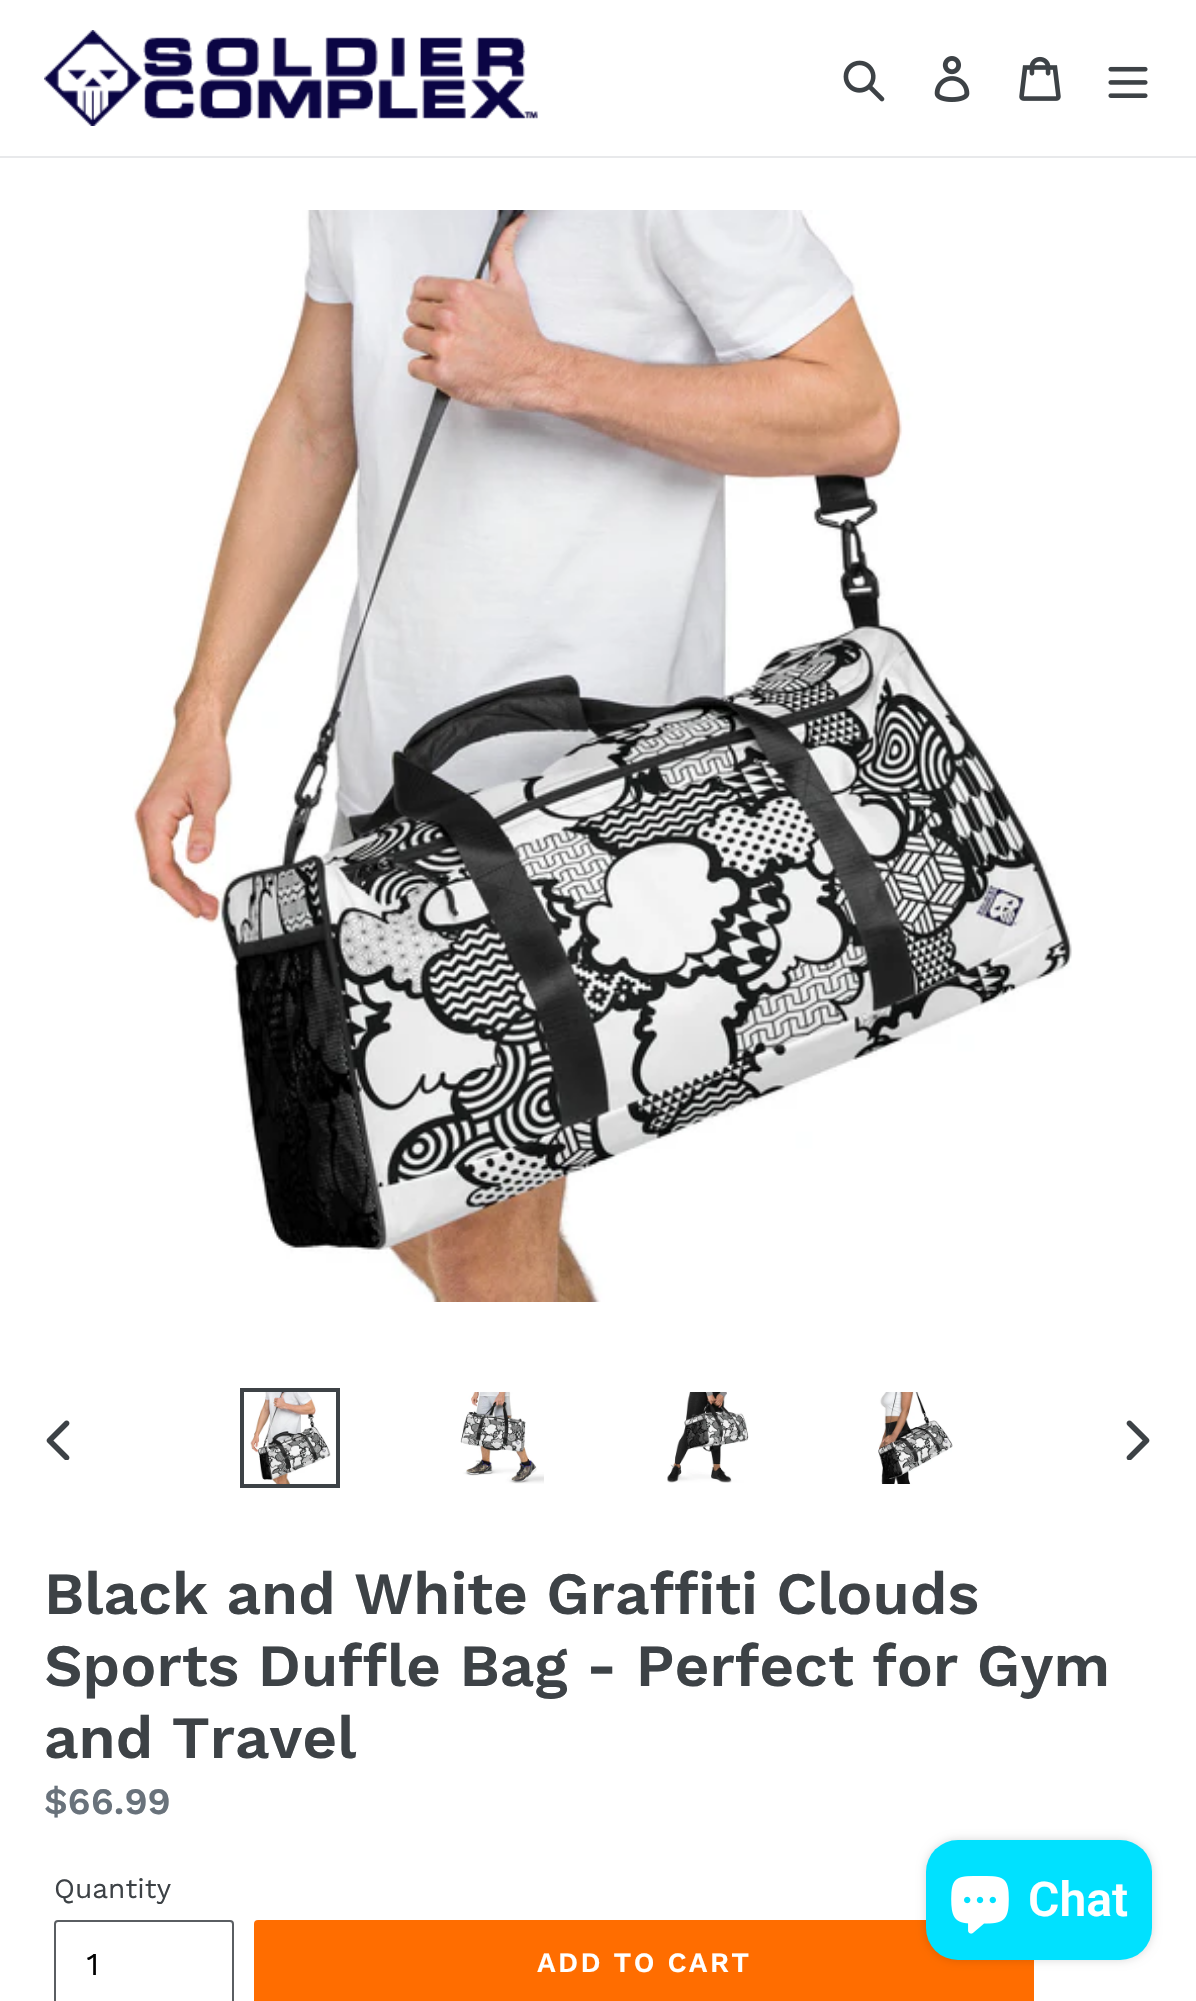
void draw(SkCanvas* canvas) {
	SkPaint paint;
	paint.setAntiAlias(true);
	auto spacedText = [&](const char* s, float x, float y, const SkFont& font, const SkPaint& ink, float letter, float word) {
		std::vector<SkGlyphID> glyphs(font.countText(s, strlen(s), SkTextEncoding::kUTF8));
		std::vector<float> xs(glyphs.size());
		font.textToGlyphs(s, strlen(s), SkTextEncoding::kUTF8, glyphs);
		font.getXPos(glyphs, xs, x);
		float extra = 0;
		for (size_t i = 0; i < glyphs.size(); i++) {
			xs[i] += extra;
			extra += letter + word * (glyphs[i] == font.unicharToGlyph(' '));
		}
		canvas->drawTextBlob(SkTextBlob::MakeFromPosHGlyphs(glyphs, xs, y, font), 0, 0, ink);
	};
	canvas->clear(0xffffffff);
	paint.setColor(0xffe8e9eb);
	canvas->drawRect(SkRect::MakeXYWH(0, 156, 1196, 2), paint);
	canvas->drawImageRect(SkImages::DeferredFromEncodedData(SkData::MakeFromFileName("img1.png")), SkRect::MakeXYWH(44, 30, 494, 96), SkSamplingOptions());
	canvas->drawImageRect(SkImages::DeferredFromEncodedData(SkData::MakeFromFileName("img2.png")), SkRect::MakeXYWH(843, 60, 42, 42), SkSamplingOptions());
	canvas->drawImageRect(SkImages::DeferredFromEncodedData(SkData::MakeFromFileName("img3.png")), SkRect::MakeXYWH(934, 56, 36, 46), SkSamplingOptions());
	canvas->drawImageRect(SkImages::DeferredFromEncodedData(SkData::MakeFromFileName("img4.png")), SkRect::MakeXYWH(1019, 56, 42, 45), SkSamplingOptions());
	canvas->drawImageRect(SkImages::DeferredFromEncodedData(SkData::MakeFromFileName("img5.png")), SkRect::MakeXYWH(1108, 66, 40, 32), SkSamplingOptions());
	canvas->drawImageRect(SkImages::DeferredFromEncodedData(SkData::MakeFromFileName("img6.png")), SkRect::MakeXYWH(133, 210, 939, 1092), SkSamplingOptions());
	canvas->drawImageRect(SkImages::DeferredFromEncodedData(SkData::MakeFromFileName("img7.png")), SkRect::MakeXYWH(46, 1420, 24, 40), SkSamplingOptions());
	paint.setStroke(true);
	paint.setStrokeWidth(4);
	paint.setColor(0xff3d4246);
	canvas->drawRect(SkRect::MakeXYWH(242, 1390, 96, 96), paint);
	canvas->drawImageRect(SkImages::DeferredFromEncodedData(SkData::MakeFromFileName("img8.png")), SkRect::MakeXYWH(250, 1392, 81, 92), SkSamplingOptions());
	canvas->drawImageRect(SkImages::DeferredFromEncodedData(SkData::MakeFromFileName("img9.png")), SkRect::MakeXYWH(460, 1392, 84, 92), SkSamplingOptions());
	canvas->drawImageRect(SkImages::DeferredFromEncodedData(SkData::MakeFromFileName("img10.png")), SkRect::MakeXYWH(667, 1392, 82, 91), SkSamplingOptions());
	canvas->drawImageRect(SkImages::DeferredFromEncodedData(SkData::MakeFromFileName("img11.png")), SkRect::MakeXYWH(878, 1392, 75, 92), SkSamplingOptions());
	canvas->drawImageRect(SkImages::DeferredFromEncodedData(SkData::MakeFromFileName("img12.png")), SkRect::MakeXYWH(1126, 1420, 24, 40), SkSamplingOptions());
	SkFont f1(fontMgr->matchFamilyStyle("Work Sans", SkFontStyle(600, SkFontStyle::kNormal_Width, SkFontStyle::kUpright_Slant)), 60);
	f1.setSubpixel(true);
	paint.setStroke(false);
	canvas->drawString("Black and White Graffiti Clouds", 44, 1614, f1, paint);
	canvas->drawString("Sports Duffle Bag - Perfect for Gym", 44, 1686, f1, paint);
	canvas->drawString("and Travel", 44, 1758, f1, paint);
	SkFont f2(fontMgr->matchFamilyStyle("Work Sans", SkFontStyle(600, SkFontStyle::kNormal_Width, SkFontStyle::kUpright_Slant)), 37.5);
	f2.setSubpixel(true);
	paint.setColor(0xff69727b);
	canvas->drawString("$66.99", 44, 1814, f2, paint);
	SkFont f3(fontMgr->matchFamilyStyle("Work Sans", SkFontStyle::Normal()), 28);
	f3.setSubpixel(true);
	paint.setColor(0xff3d4246);
	canvas->drawString("Quantity", 54, 1898, f3, paint);
	paint.setStroke(true);
	paint.setStrokeWidth(2);
	paint.setColor(0xff5a5e62);
	canvas->drawRoundRect(SkRect::MakeXYWH(55, 1921, 178, 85), 3, 3, paint);
	SkFont f4(fontMgr->matchFamilyStyle("Work Sans", SkFontStyle::Normal()), 32);
	f4.setSubpixel(true);
	paint.setStroke(false);
	paint.setColor(0xff000000);
	canvas->drawString("1", 86, 1975, f4, paint);
	paint.setColor(0xffff6d00);
	canvas->drawRoundRect(SkRect::MakeXYWH(254, 1920, 780, 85), 4, 4, paint);
	SkFont f5(fontMgr->matchFamilyStyle("Work Sans", SkFontStyle(600, SkFontStyle::kNormal_Width, SkFontStyle::kUpright_Slant)), 28);
	f5.setSubpixel(true);
	paint.setColor(0xffffffff);
	spacedText("ADD TO CART", 537, 1972, f5, paint, 2.25, 0);
	paint.setColor(0x26000000);
	paint.setMaskFilter(SkMaskFilter::MakeBlur(kNormal_SkBlurStyle, 5));
	canvas->drawRoundRect(SkRect::MakeXYWH(926, 1840, 226, 120), 32, 32, paint);
	paint.setMaskFilter(nullptr);
	paint.setColor(0xff00e1ff);
	canvas->drawRoundRect(SkRect::MakeXYWH(926, 1840, 226, 120), 32, 32, paint);
	canvas->drawImageRect(SkImages::DeferredFromEncodedData(SkData::MakeFromFileName("img13.png")), SkRect::MakeXYWH(951, 1876, 58, 58), SkSamplingOptions());
	SkFont f6(fontMgr->matchFamilyStyle("Roboto", SkFontStyle(600, SkFontStyle::kNormal_Width, SkFontStyle::kUpright_Slant)), 48);
	f6.setSubpixel(true);
	paint.setColor(0xffffffff);
	canvas->drawString("Chat", 1028, 1916, f6, paint);
}
